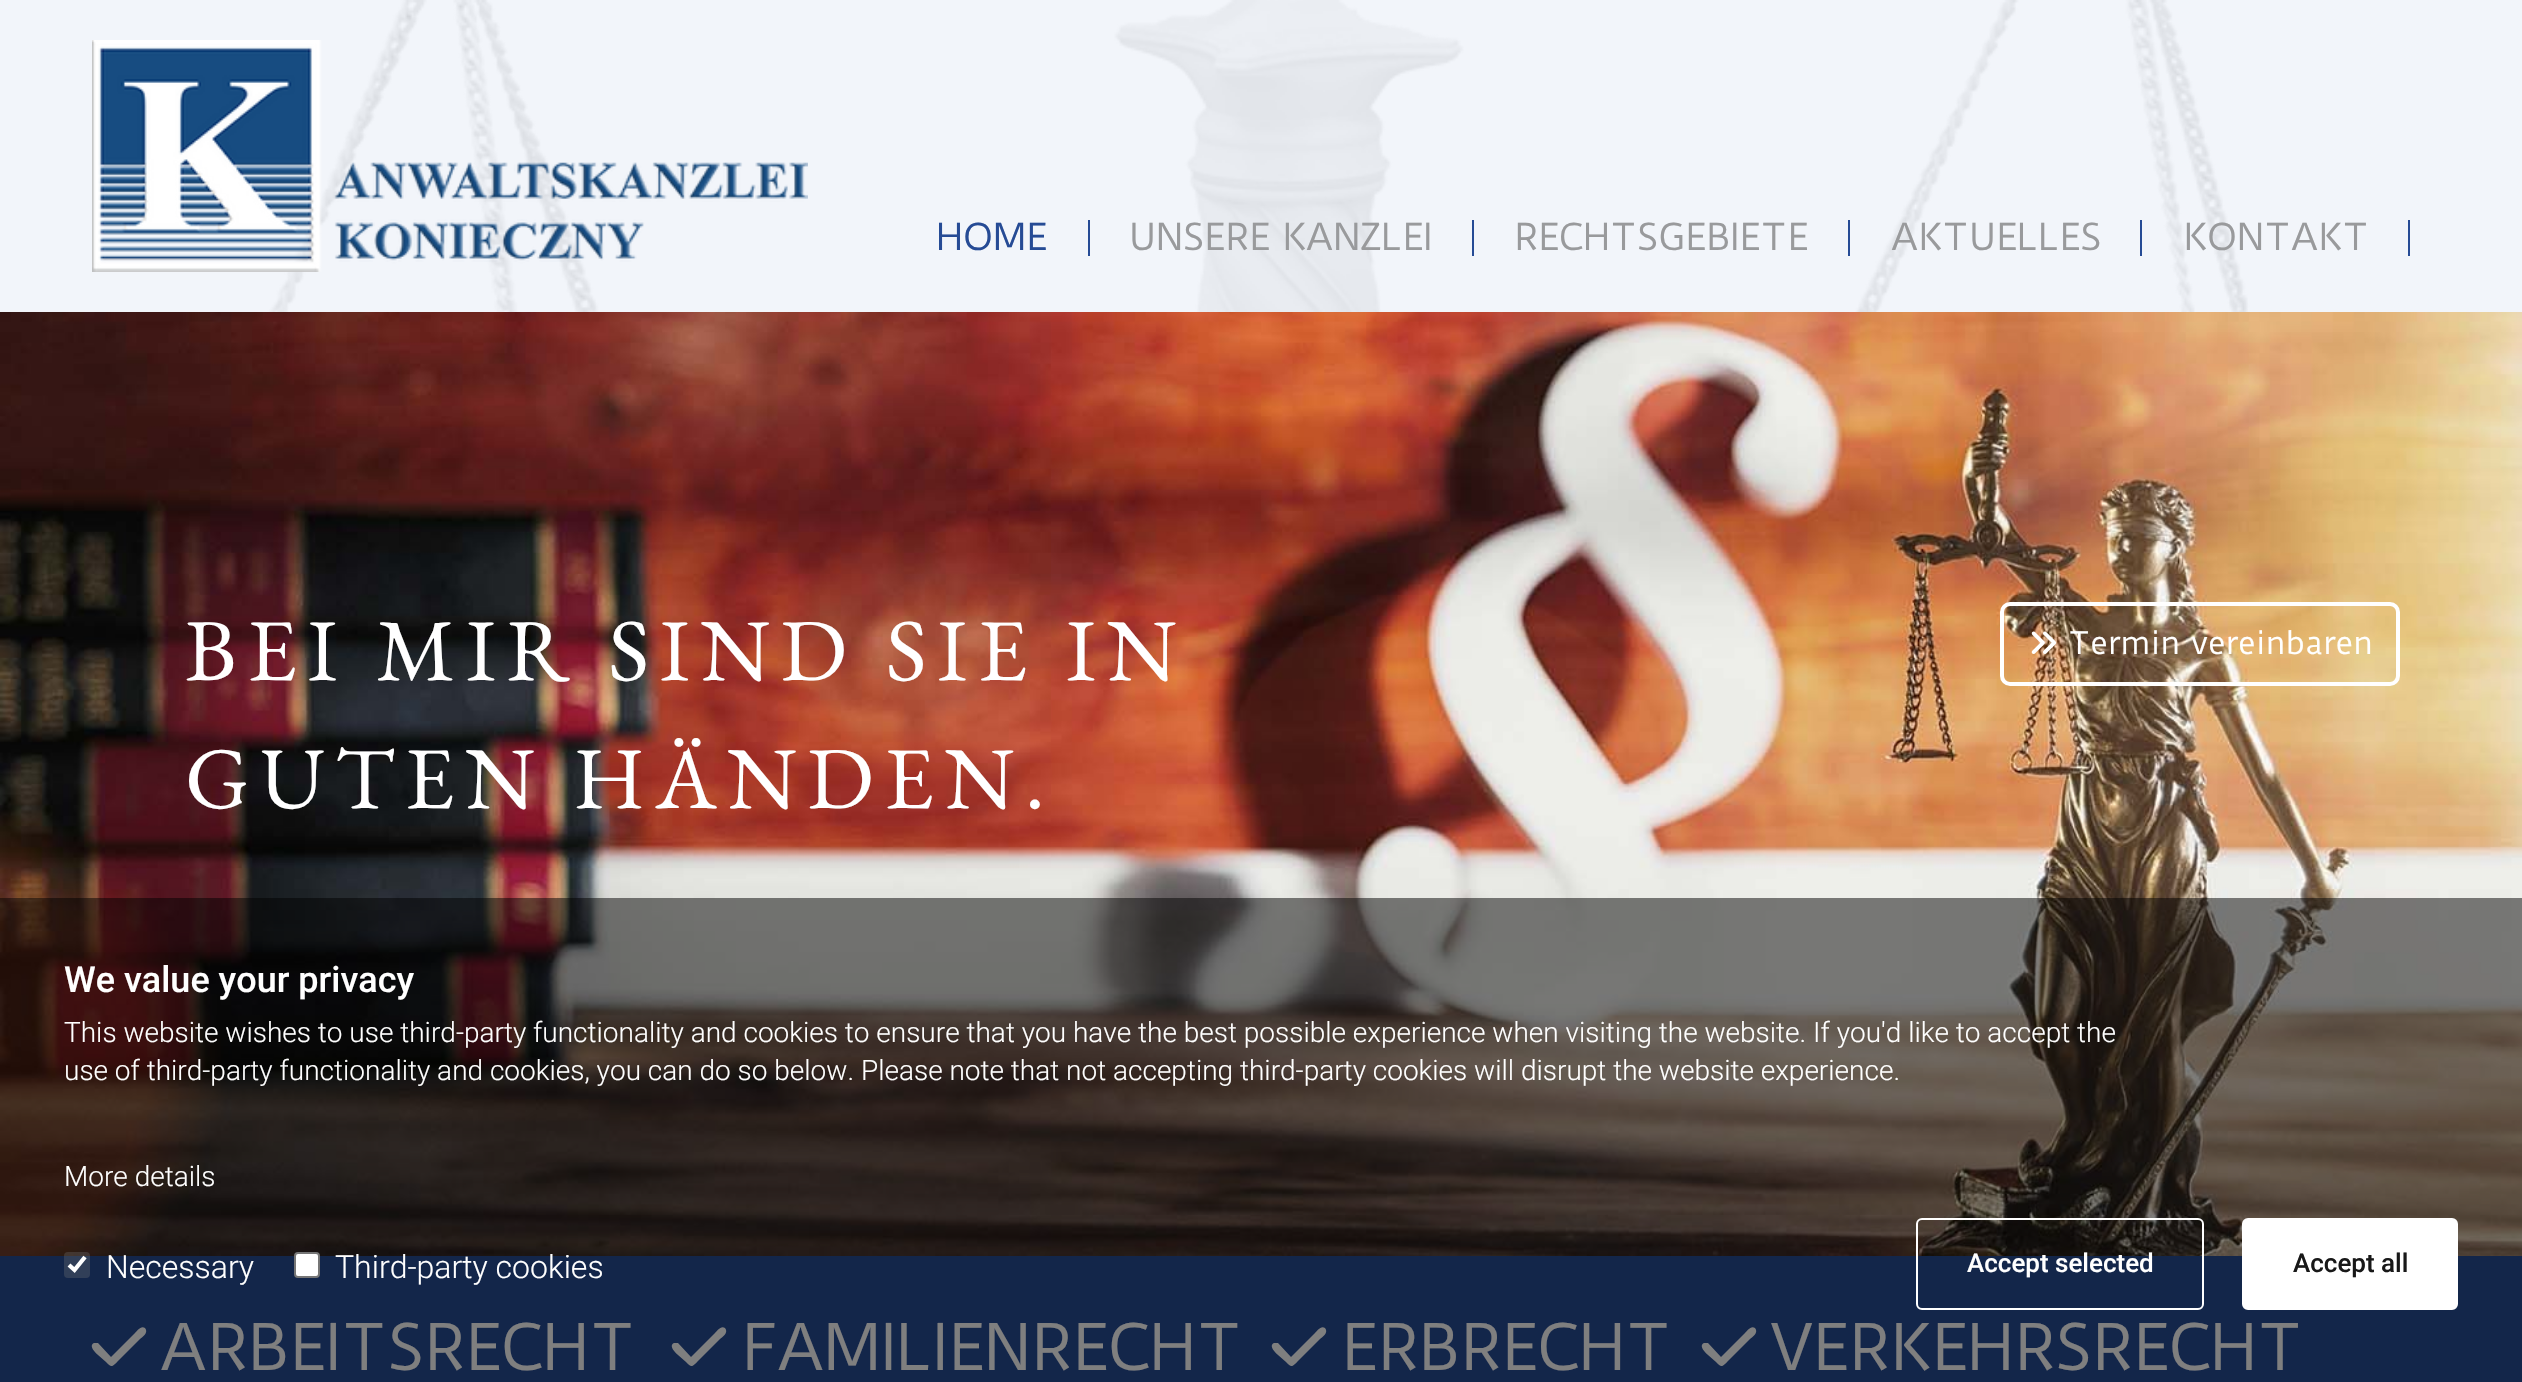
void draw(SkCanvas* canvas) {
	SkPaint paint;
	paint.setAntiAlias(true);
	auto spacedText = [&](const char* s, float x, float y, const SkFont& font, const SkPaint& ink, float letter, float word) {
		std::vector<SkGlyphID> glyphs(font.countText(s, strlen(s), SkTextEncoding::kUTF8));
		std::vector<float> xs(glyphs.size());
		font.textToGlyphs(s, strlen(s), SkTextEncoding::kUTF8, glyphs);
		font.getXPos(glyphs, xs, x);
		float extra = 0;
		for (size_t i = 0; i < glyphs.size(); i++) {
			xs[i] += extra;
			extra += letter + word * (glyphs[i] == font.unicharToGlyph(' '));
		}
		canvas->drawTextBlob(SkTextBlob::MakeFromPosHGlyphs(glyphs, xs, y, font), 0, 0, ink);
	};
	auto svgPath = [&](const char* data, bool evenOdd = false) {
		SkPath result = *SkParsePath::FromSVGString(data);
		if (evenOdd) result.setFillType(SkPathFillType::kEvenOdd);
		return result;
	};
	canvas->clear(0xffffffff);
	canvas->drawImageRect(SkImages::DeferredFromEncodedData(SkData::MakeFromFileName("img1.png")), SkRect::MakeXYWH(267, 0, 1984, 312), SkSamplingOptions());
	paint.setColor(0x0d003399);
	canvas->drawRect(SkRect::MakeXYWH(0, 0, 2522, 312), paint);
	canvas->drawImageRect(SkImages::DeferredFromEncodedData(SkData::MakeFromFileName("img2.png")), SkRect::MakeXYWH(92, 40, 716, 232), SkSamplingOptions());
	paint.setColor(0xff264b95);
	canvas->drawRect(SkRect::MakeXYWH(1088, 220, 2, 36), paint);
	SkFont f1(fontMgr->matchFamilyStyle("Duru Sans", SkFontStyle::Normal()), 36);
	f1.setSubpixel(true);
	canvas->drawString("HOME", 936, 250, f1, paint);
	canvas->drawRect(SkRect::MakeXYWH(1472, 220, 2, 36), paint);
	paint.setColor(0xff999a9c);
	canvas->drawString("UNSERE KANZLEI", 1129, 250, f1, paint);
	paint.setColor(0xff264b95);
	canvas->drawRect(SkRect::MakeXYWH(1848, 220, 2, 36), paint);
	paint.setColor(0xff999a9c);
	canvas->drawString("RECHTSGEBIETE", 1514, 250, f1, paint);
	paint.setColor(0xff264b95);
	canvas->drawRect(SkRect::MakeXYWH(2140, 220, 2, 36), paint);
	paint.setColor(0xff999a9c);
	canvas->drawString("AKTUELLES", 1891, 250, f1, paint);
	paint.setColor(0xff264b95);
	canvas->drawRect(SkRect::MakeXYWH(2408, 220, 2, 36), paint);
	paint.setColor(0xff999a9c);
	canvas->drawString("KONTAKT", 2183, 250, f1, paint);
	canvas->drawImageRect(SkImages::DeferredFromEncodedData(SkData::MakeFromFileName("img3.png")), SkRect::MakeXYWH(0, 312, 2522, 944), SkSamplingOptions());
	SkFont f2(fontMgr->matchFamilyStyle("EB Garamond", SkFontStyle::Normal()), 88);
	f2.setSubpixel(true);
	paint.setColor(0xffffffff);
	spacedText("BEI MIR SIND SIE IN", 185, 680, f2, paint, 10.6, 0);
	spacedText("GUTEN HÄNDEN.", 185, 808, f2, paint, 10.6, 0);
	paint.setStroke(true);
	paint.setStrokeWidth(4);
	canvas->drawRoundRect(SkRect::MakeXYWH(2002, 604, 396, 80), 8, 8, paint);
	canvas->drawImageRect(SkImages::DeferredFromEncodedData(SkData::MakeFromFileName("img4.png")), SkRect::MakeXYWH(2031, 631, 26, 23), SkSamplingOptions());
	SkFont f3(fontMgr->matchFamilyStyle("Duru Sans", SkFontStyle::Normal()), 30);
	f3.setSubpixel(true);
	paint.setStroke(false);
	canvas->drawString("Termin vereinbaren", 2068, 654, f3, paint);
	paint.setColor(0xff264b95);
	canvas->drawRect(SkRect::MakeXYWH(0, 1256, 2522, 126), paint);
	SkFont f4(fontMgr->matchFamilyStyle("Duru Sans", SkFontStyle::Normal()), 62);
	f4.setSubpixel(true);
	paint.setColor(0xffffffff);
	canvas->drawString("ARBEITSRECHT", 160, 1370, f4, paint);
	canvas->drawPath(svgPath("M145 1328C149 1333 142 1337 140 1339L119 1360C113 1366 112 1369 106 1362L98 1355C96 1353 88 1346 94 1343C95 1343 97 1343 98 1343L111 1357L135 1333C137 1331 141 1325 145 1328Z"), paint);
	canvas->drawString("FAMILIENRECHT", 741, 1370, f4, paint);
	canvas->drawPath(svgPath("M725 1328C729 1333 722 1337 720 1339L699 1360C693 1366 692 1369 686 1362L678 1355C676 1353 668 1346 674 1343C675 1343 677 1343 678 1343L691 1357L715 1333C717 1331 721 1325 725 1328Z"), paint);
	canvas->drawString("ERBRECHT", 1341, 1370, f4, paint);
	canvas->drawPath(svgPath("M1325 1328C1329 1333 1322 1337 1320 1339L1299 1360C1293 1366 1292 1369 1286 1362L1278 1355C1276 1353 1268 1346 1274 1343C1275 1343 1277 1343 1278 1343L1291 1357L1315 1333C1317 1331 1321 1325 1325 1328Z"), paint);
	canvas->drawPath(svgPath("M1755 1328C1759 1333 1752 1337 1750 1339L1729 1360C1723 1366 1722 1369 1716 1362L1708 1355C1706 1353 1698 1346 1704 1343C1705 1343 1707 1343 1708 1343L1721 1357L1745 1333C1747 1331 1751 1325 1755 1328Z"), paint);
	canvas->drawString("VERKEHRSRECHT", 1771, 1370, f4, paint);
	paint.setColor(0x80000000);
	canvas->drawRect(SkRect::MakeXYWH(0, 898, 2522, 484), paint);
	SkFont f5(fontMgr->matchFamilyStyle("Roboto", SkFontStyle(500, SkFontStyle::kNormal_Width, SkFontStyle::kUpright_Slant)), 36);
	f5.setSubpixel(true);
	paint.setColor(0xffffffff);
	canvas->drawString("We value your privacy", 64, 992, f5, paint);
	SkFont f6(fontMgr->matchFamilyStyle("Roboto", SkFontStyle(300, SkFontStyle::kNormal_Width, SkFontStyle::kUpright_Slant)), 28);
	f6.setSubpixel(true);
	canvas->drawString("This website wishes to use third-party functionality and cookies to ensure that you have the best possible experience when visiting the website. If you'd like to accept the", 64, 1042, f6, paint);
	canvas->drawString("use of third-party functionality and cookies, you can do so below. Please note that not accepting third-party cookies will disrupt the website experience.", 64, 1080, f6, paint);
	canvas->drawString("More details", 64, 1186, f6, paint);
	paint.setColor(0x4d767676);
	canvas->drawRoundRect(SkRect::MakeXYWH(64, 1252, 26, 26), 4, 4, paint);
	paint.setStroke(true);
	paint.setStrokeWidth(4.2);
	paint.setColor(0xffffffff);
	canvas->drawPath(svgPath("M69 1265L74.5 1270L85 1257"), paint);
	SkFont f7(fontMgr->matchFamilyStyle("Roboto", SkFontStyle(300, SkFontStyle::kNormal_Width, SkFontStyle::kUpright_Slant)), 32);
	f7.setSubpixel(true);
	paint.setStroke(false);
	canvas->drawString("Necessary", 106, 1278, f7, paint);
	canvas->drawRoundRect(SkRect::MakeXYWH(295, 1253, 24, 24), 3, 3, paint);
	paint.setStroke(true);
	paint.setStrokeWidth(2);
	paint.setColor(0xff767676);
	canvas->drawRoundRect(SkRect::MakeXYWH(295, 1253, 24, 24), 3, 3, paint);
	paint.setStroke(false);
	paint.setColor(0xffffffff);
	canvas->drawString("Third-party cookies", 335, 1278, f7, paint);
	paint.setStroke(true);
	canvas->drawRoundRect(SkRect::MakeXYWH(1917, 1219, 286, 90), 5, 5, paint);
	SkFont f8(fontMgr->matchFamilyStyle("Roboto", SkFontStyle(500, SkFontStyle::kNormal_Width, SkFontStyle::kUpright_Slant)), 26);
	f8.setSubpixel(true);
	paint.setStroke(false);
	canvas->drawString("Accept selected", 1967, 1272, f8, paint);
	canvas->drawRoundRect(SkRect::MakeXYWH(2243, 1219, 214, 90), 5, 5, paint);
	paint.setStroke(true);
	canvas->drawRoundRect(SkRect::MakeXYWH(2243, 1219, 214, 90), 5, 5, paint);
	paint.setStroke(false);
	paint.setColor(0xff181818);
	canvas->drawString("Accept all", 2293, 1272, f8, paint);
}
